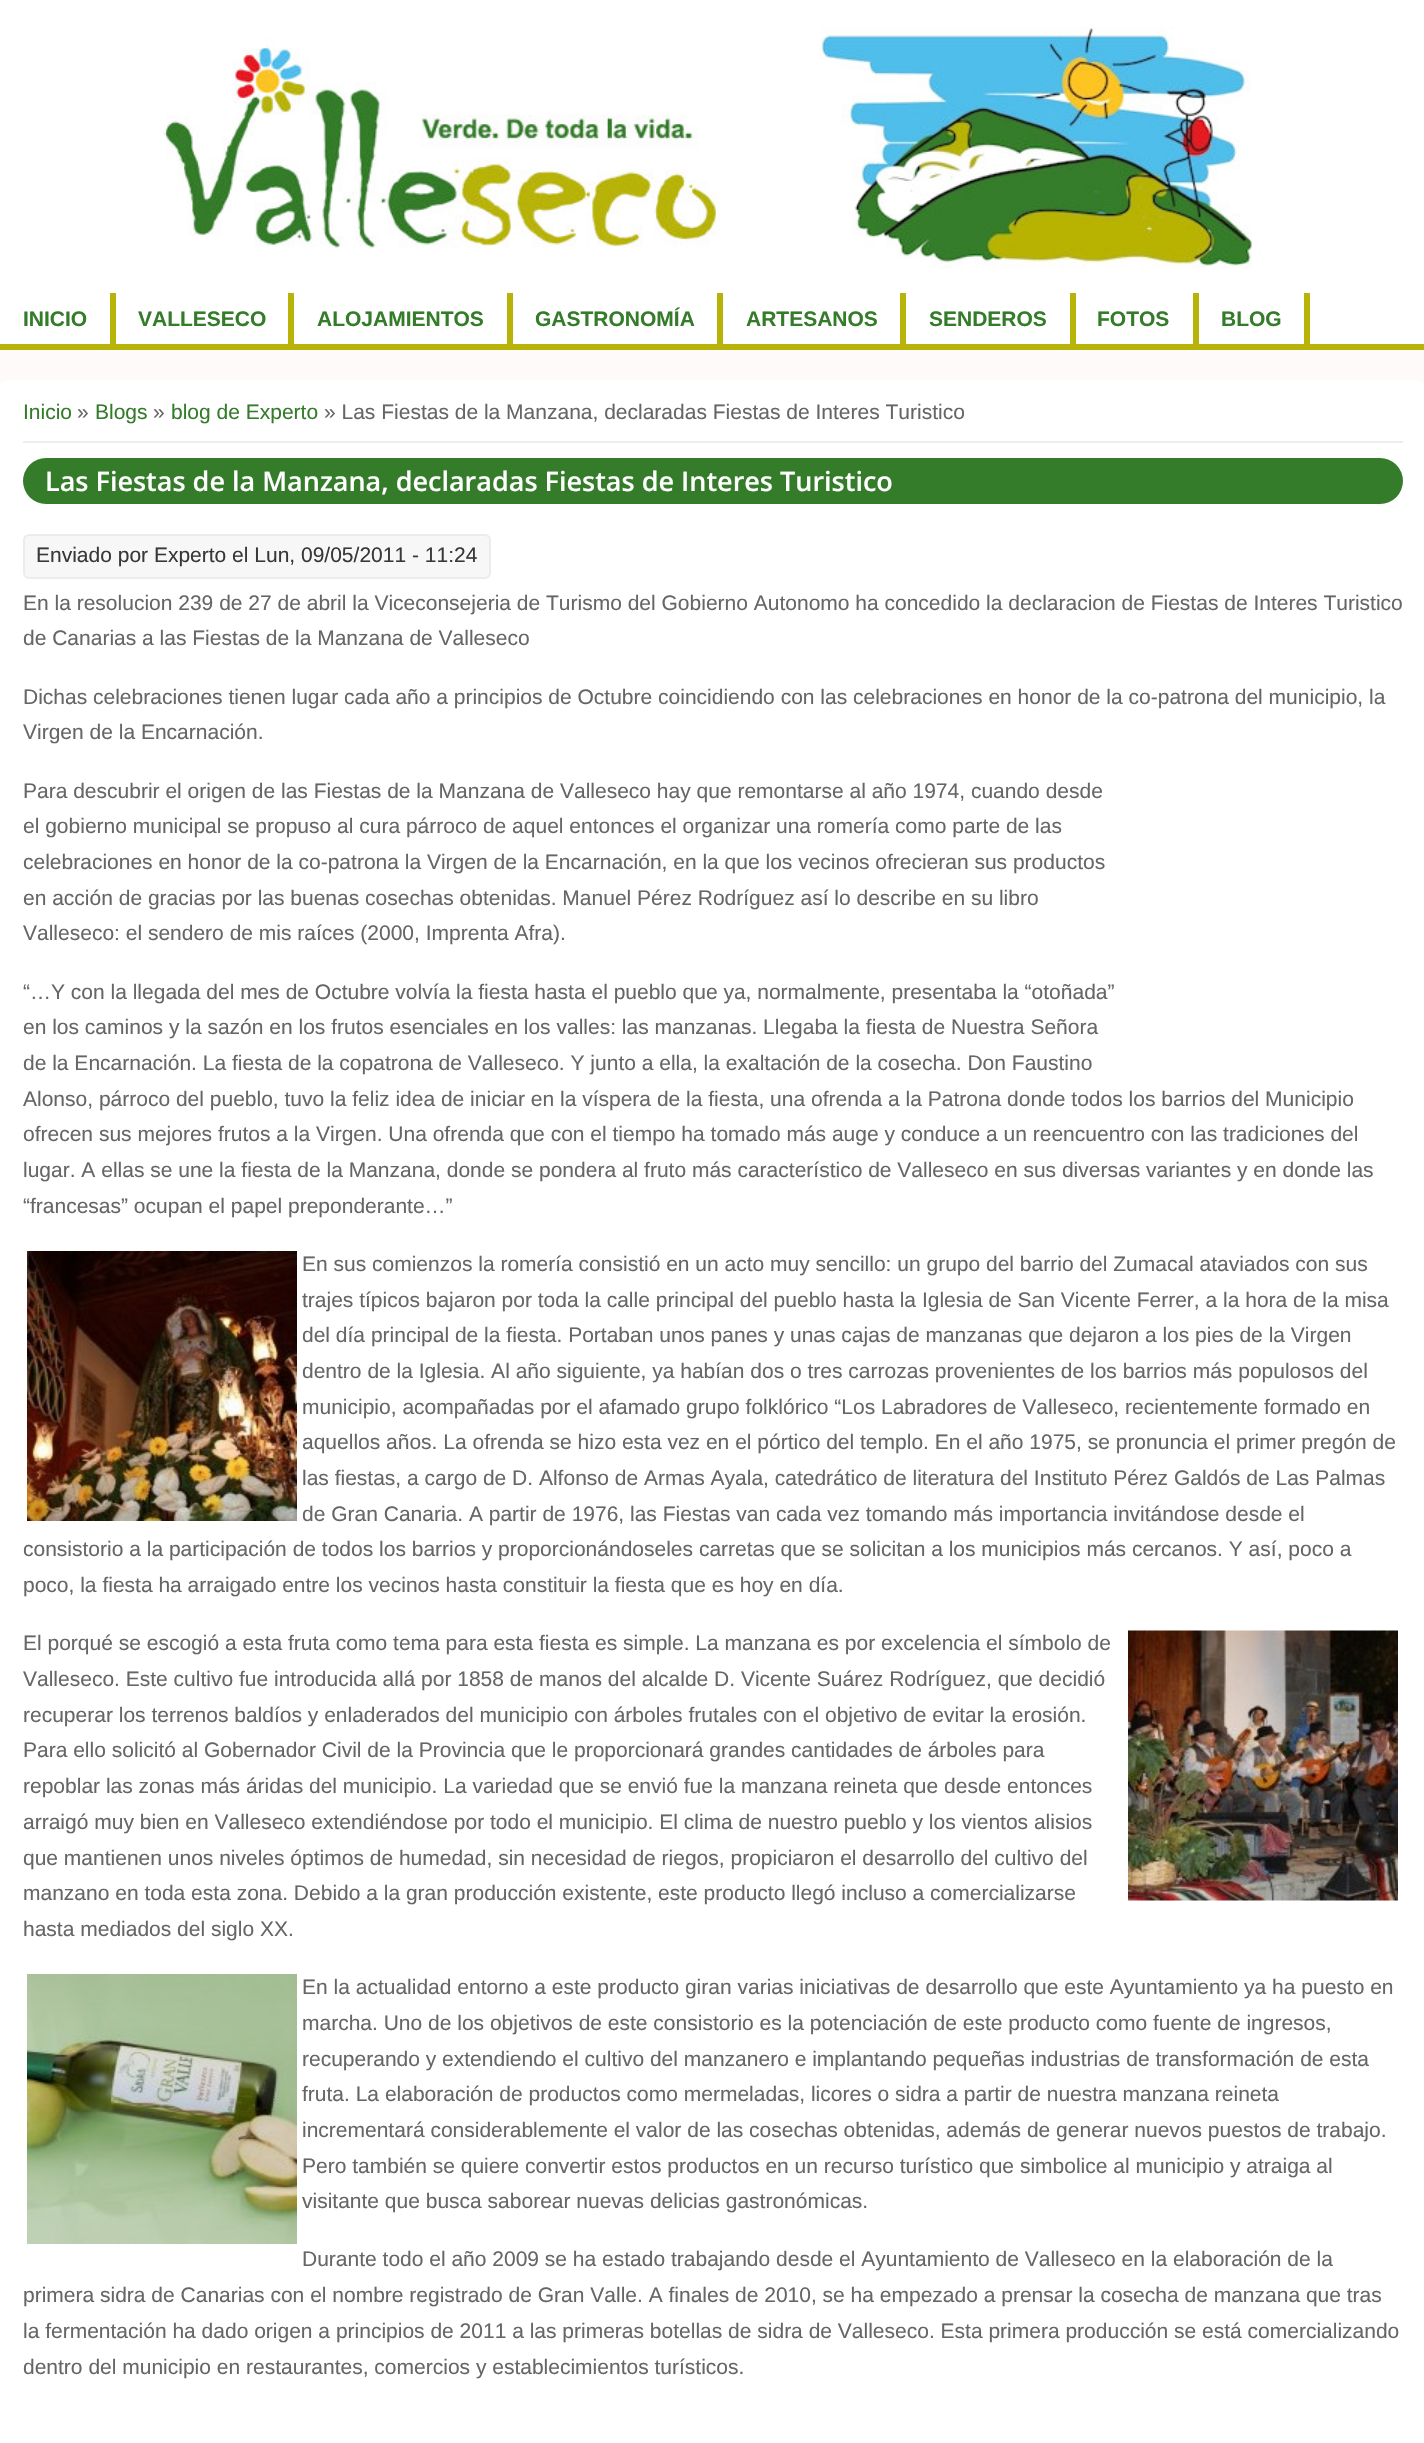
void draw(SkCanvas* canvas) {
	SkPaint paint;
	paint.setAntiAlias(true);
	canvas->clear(0xfffffafa);
	paint.setColor(0xffffffff);
	canvas->drawRect(SkRect::MakeXYWH(0, 0, 1424, 344), paint);
	canvas->drawImageRect(SkImages::DeferredFromEncodedData(SkData::MakeFromFileName("img1.png")), SkRect::MakeXYWH(163, 26, 1089, 243), SkSamplingOptions());
	paint.setColor(0xffb8b308);
	canvas->drawRect(SkRect::MakeXYWH(0, 344, 1424, 6), paint);
	canvas->drawRect(SkRect::MakeXYWH(110, 293, 6, 51), paint);
	SkFont f1(fontMgr->matchFamilyStyle("Liberation Sans", SkFontStyle::Bold()), 21);
	f1.setSubpixel(true);
	paint.setColor(0xff347c2a);
	canvas->drawString("INICIO", 23, 326, f1, paint);
	paint.setColor(0xffb8b308);
	canvas->drawRect(SkRect::MakeXYWH(288, 293, 6, 51), paint);
	paint.setColor(0xff347c2a);
	canvas->drawString("VALLESECO", 138, 326, f1, paint);
	paint.setColor(0xffb8b308);
	canvas->drawRect(SkRect::MakeXYWH(507, 293, 6, 51), paint);
	paint.setColor(0xff347c2a);
	canvas->drawString("ALOJAMIENTOS", 317, 326, f1, paint);
	paint.setColor(0xffb8b308);
	canvas->drawRect(SkRect::MakeXYWH(717, 293, 6, 51), paint);
	paint.setColor(0xff347c2a);
	canvas->drawString("GASTRONOMÍA", 535, 326, f1, paint);
	paint.setColor(0xffb8b308);
	canvas->drawRect(SkRect::MakeXYWH(900, 293, 6, 51), paint);
	paint.setColor(0xff347c2a);
	canvas->drawString("ARTESANOS", 746, 326, f1, paint);
	paint.setColor(0xffb8b308);
	canvas->drawRect(SkRect::MakeXYWH(1070, 293, 6, 51), paint);
	paint.setColor(0xff347c2a);
	canvas->drawString("SENDEROS", 929, 326, f1, paint);
	paint.setColor(0xffb8b308);
	canvas->drawRect(SkRect::MakeXYWH(1193, 293, 6, 51), paint);
	paint.setColor(0xff347c2a);
	canvas->drawString("FOTOS", 1097, 326, f1, paint);
	paint.setColor(0xffb8b308);
	canvas->drawRect(SkRect::MakeXYWH(1304, 293, 6, 51), paint);
	paint.setColor(0xff347c2a);
	canvas->drawString("BLOG", 1221, 326, f1, paint);
	paint.setColor(0xffffffff);
	canvas->drawRoundRect(SkRect::MakeXYWH(0, 380, 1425, 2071), 8, 8, paint);
	paint.setColor(0xffeeeeee);
	canvas->drawRect(SkRect::MakeXYWH(23, 441, 1380, 2), paint);
	SkFont f2(fontMgr->matchFamilyStyle("Liberation Sans", SkFontStyle::Normal()), 21);
	f2.setSubpixel(true);
	paint.setColor(0xff347c2a);
	canvas->drawString("Inicio", 23, 419, f2, paint);
	paint.setColor(0xff666666);
	canvas->drawString("»", 77, 419, f2, paint);
	paint.setColor(0xff347c2a);
	canvas->drawString("Blogs", 95, 419, f2, paint);
	paint.setColor(0xff666666);
	canvas->drawString("»", 153, 419, f2, paint);
	paint.setColor(0xff347c2a);
	canvas->drawString("blog de Experto", 171, 419, f2, paint);
	paint.setColor(0xff666666);
	canvas->drawString("» Las Fiestas de la Manzana, declaradas Fiestas de Interes Turistico", 324, 419, f2, paint);
	paint.setColor(0xff347c2a);
	canvas->drawRoundRect(SkRect::MakeXYWH(23, 458, 1380, 46), 23, 23, paint);
	SkFont f3(fontMgr->matchFamilyStyle("Open Sans", SkFontStyle(600, SkFontStyle::kNormal_Width, SkFontStyle::kUpright_Slant)), 27);
	f3.setSubpixel(true);
	paint.setColor(0xffffffff);
	canvas->drawString("Las Fiestas de la Manzana, declaradas Fiestas de Interes Turistico", 45, 491, f3, paint);
	paint.setColor(0xfff7f7f7);
	canvas->drawRoundRect(SkRect::MakeXYWH(24, 535, 466, 43), 5, 5, paint);
	paint.setStroke(true);
	paint.setStrokeWidth(2);
	paint.setColor(0xffececec);
	canvas->drawRoundRect(SkRect::MakeXYWH(24, 535, 466, 43), 5, 5, paint);
	paint.setStroke(false);
	paint.setColor(0xff383838);
	canvas->drawString("Enviado por Experto el Lun, 09/05/2011 - 11:24", 36, 562, f2, paint);
	paint.setColor(0xff666666);
	canvas->drawString("En la resolucion 239 de 27 de abril la Viceconsejeria de Turismo del Gobierno Autonomo ha concedido la declaracion de Fiestas de Interes Turistico", 23, 610, f2, paint);
	canvas->drawString("de Canarias a las Fiestas de la Manzana de Valleseco", 23, 645, f2, paint);
	canvas->drawString("Dichas celebraciones tienen lugar cada año a principios de Octubre coincidiendo con las celebraciones en honor de la co-patrona del municipio, la", 23, 704, f2, paint);
	canvas->drawString("Virgen de la Encarnación.", 23, 739, f2, paint);
	canvas->drawString("Para descubrir el origen de las Fiestas de la Manzana de Valleseco hay que remontarse al año 1974, cuando desde", 23, 798, f2, paint);
	canvas->drawString("el gobierno municipal se propuso al cura párroco de aquel entonces el organizar una romería como parte de las", 23, 833, f2, paint);
	canvas->drawString("celebraciones en honor de la co-patrona la Virgen de la Encarnación, en la que los vecinos ofrecieran sus productos", 23, 869, f2, paint);
	canvas->drawString("en acción de gracias por las buenas cosechas obtenidas. Manuel Pérez Rodríguez así lo describe en su libro", 23, 905, f2, paint);
	canvas->drawString("Valleseco: el sendero de mis raíces (2000, Imprenta Afra).", 23, 940, f2, paint);
	canvas->drawString("“…Y con la llegada del mes de Octubre volvía la fiesta hasta el pueblo que ya, normalmente, presentaba la “otoñada”", 23, 999, f2, paint);
	canvas->drawString("en los caminos y la sazón en los frutos esenciales en los valles: las manzanas. Llegaba la fiesta de Nuestra Señora", 23, 1034, f2, paint);
	canvas->drawString("de la Encarnación. La fiesta de la copatrona de Valleseco. Y junto a ella, la exaltación de la cosecha. Don Faustino", 23, 1070, f2, paint);
	canvas->drawString("Alonso, párroco del pueblo, tuvo la feliz idea de iniciar en la víspera de la fiesta, una ofrenda a la Patrona donde todos los barrios del Municipio", 23, 1106, f2, paint);
	canvas->drawString("ofrecen sus mejores frutos a la Virgen. Una ofrenda que con el tiempo ha tomado más auge y conduce a un reencuentro con las tradiciones del", 23, 1141, f2, paint);
	canvas->drawString("lugar. A ellas se une la fiesta de la Manzana, donde se pondera al fruto más característico de Valleseco en sus diversas variantes y en donde las", 23, 1177, f2, paint);
	canvas->drawString("“francesas” ocupan el papel preponderante…”", 23, 1213, f2, paint);
	canvas->drawImageRect(SkImages::DeferredFromEncodedData(SkData::MakeFromFileName("img2.png")), SkRect::MakeXYWH(27, 1251, 270, 270), SkSamplingOptions());
	canvas->drawString("En sus comienzos la romería consistió en un acto muy sencillo: un grupo del barrio del Zumacal ataviados con sus", 302, 1271, f2, paint);
	canvas->drawString("trajes típicos bajaron por toda la calle principal del pueblo hasta la Iglesia de San Vicente Ferrer, a la hora de la misa", 302, 1307, f2, paint);
	canvas->drawString("del día principal de la fiesta. Portaban unos panes y unas cajas de manzanas que dejaron a los pies de la Virgen", 302, 1342, f2, paint);
	canvas->drawString("dentro de la Iglesia. Al año siguiente, ya habían dos o tres carrozas provenientes de los barrios más populosos del", 302, 1378, f2, paint);
	canvas->drawString("municipio, acompañadas por el afamado grupo folklórico “Los Labradores de Valleseco, recientemente formado en", 302, 1414, f2, paint);
	canvas->drawString("aquellos años. La ofrenda se hizo esta vez en el pórtico del templo. En el año 1975, se pronuncia el primer pregón de", 302, 1449, f2, paint);
	canvas->drawString("las fiestas, a cargo de D. Alfonso de Armas Ayala, catedrático de literatura del Instituto Pérez Galdós de Las Palmas", 302, 1485, f2, paint);
	canvas->drawString("de Gran Canaria. A partir de 1976, las Fiestas van cada vez tomando más importancia invitándose desde el", 302, 1521, f2, paint);
	canvas->drawString("consistorio a la participación de todos los barrios y proporcionándoseles carretas que se solicitan a los municipios más cercanos. Y así, poco a", 23, 1556, f2, paint);
	canvas->drawString("poco, la fiesta ha arraigado entre los vecinos hasta constituir la fiesta que es hoy en día.", 23, 1592, f2, paint);
	canvas->drawString("El porqué se escogió a esta fruta como tema para esta fiesta es simple. La manzana es por excelencia el símbolo de", 23, 1650, f2, paint);
	canvas->drawImageRect(SkImages::DeferredFromEncodedData(SkData::MakeFromFileName("img3.png")), SkRect::MakeXYWH(1128, 1630, 270, 271), SkSamplingOptions());
	canvas->drawString("Valleseco. Este cultivo fue introducida allá por 1858 de manos del alcalde D. Vicente Suárez Rodríguez, que decidió", 23, 1686, f2, paint);
	canvas->drawString("recuperar los terrenos baldíos y enladerados del municipio con árboles frutales con el objetivo de evitar la erosión.", 23, 1722, f2, paint);
	canvas->drawString("Para ello solicitó al Gobernador Civil de la Provincia que le proporcionará grandes cantidades de árboles para", 23, 1757, f2, paint);
	canvas->drawString("repoblar las zonas más áridas del municipio. La variedad que se envió fue la manzana reineta que desde entonces", 23, 1793, f2, paint);
	canvas->drawString("arraigó muy bien en Valleseco extendiéndose por todo el municipio. El clima de nuestro pueblo y los vientos alisios", 23, 1829, f2, paint);
	canvas->drawString("que mantienen unos niveles óptimos de humedad, sin necesidad de riegos, propiciaron el desarrollo del cultivo del", 23, 1865, f2, paint);
	canvas->drawString("manzano en toda esta zona. Debido a la gran producción existente, este producto llegó incluso a comercializarse", 23, 1900, f2, paint);
	canvas->drawString("hasta mediados del siglo XX.", 23, 1936, f2, paint);
	canvas->drawImageRect(SkImages::DeferredFromEncodedData(SkData::MakeFromFileName("img4.png")), SkRect::MakeXYWH(27, 1974, 270, 270), SkSamplingOptions());
	canvas->drawString("En la actualidad entorno a este producto giran varias iniciativas de desarrollo que este Ayuntamiento ya ha puesto en", 302, 1994, f2, paint);
	canvas->drawString("marcha. Uno de los objetivos de este consistorio es la potenciación de este producto como fuente de ingresos,", 302, 2030, f2, paint);
	canvas->drawString("recuperando y extendiendo el cultivo del manzanero e implantando pequeñas industrias de transformación de esta", 302, 2066, f2, paint);
	canvas->drawString("fruta. La elaboración de productos como mermeladas, licores o sidra a partir de nuestra manzana reineta", 302, 2101, f2, paint);
	canvas->drawString("incrementará considerablemente el valor de las cosechas obtenidas, además de generar nuevos puestos de trabajo.", 302, 2137, f2, paint);
	canvas->drawString("Pero también se quiere convertir estos productos en un recurso turístico que simbolice al municipio y atraiga al", 302, 2173, f2, paint);
	canvas->drawString("visitante que busca saborear nuevas delicias gastronómicas.", 302, 2208, f2, paint);
	canvas->drawString("Durante todo el año 2009 se ha estado trabajando desde el Ayuntamiento de Valleseco en la elaboración de la", 302, 2266, f2, paint);
	canvas->drawString("primera sidra de Canarias con el nombre registrado de Gran Valle. A finales de 2010, se ha empezado a prensar la cosecha de manzana que tras", 23, 2302, f2, paint);
	canvas->drawString("la fermentación ha dado origen a principios de 2011 a las primeras botellas de sidra de Valleseco. Esta primera producción se está comercializando", 23, 2338, f2, paint);
	canvas->drawString("dentro del municipio en restaurantes, comercios y establecimientos turísticos.", 23, 2374, f2, paint);
}
